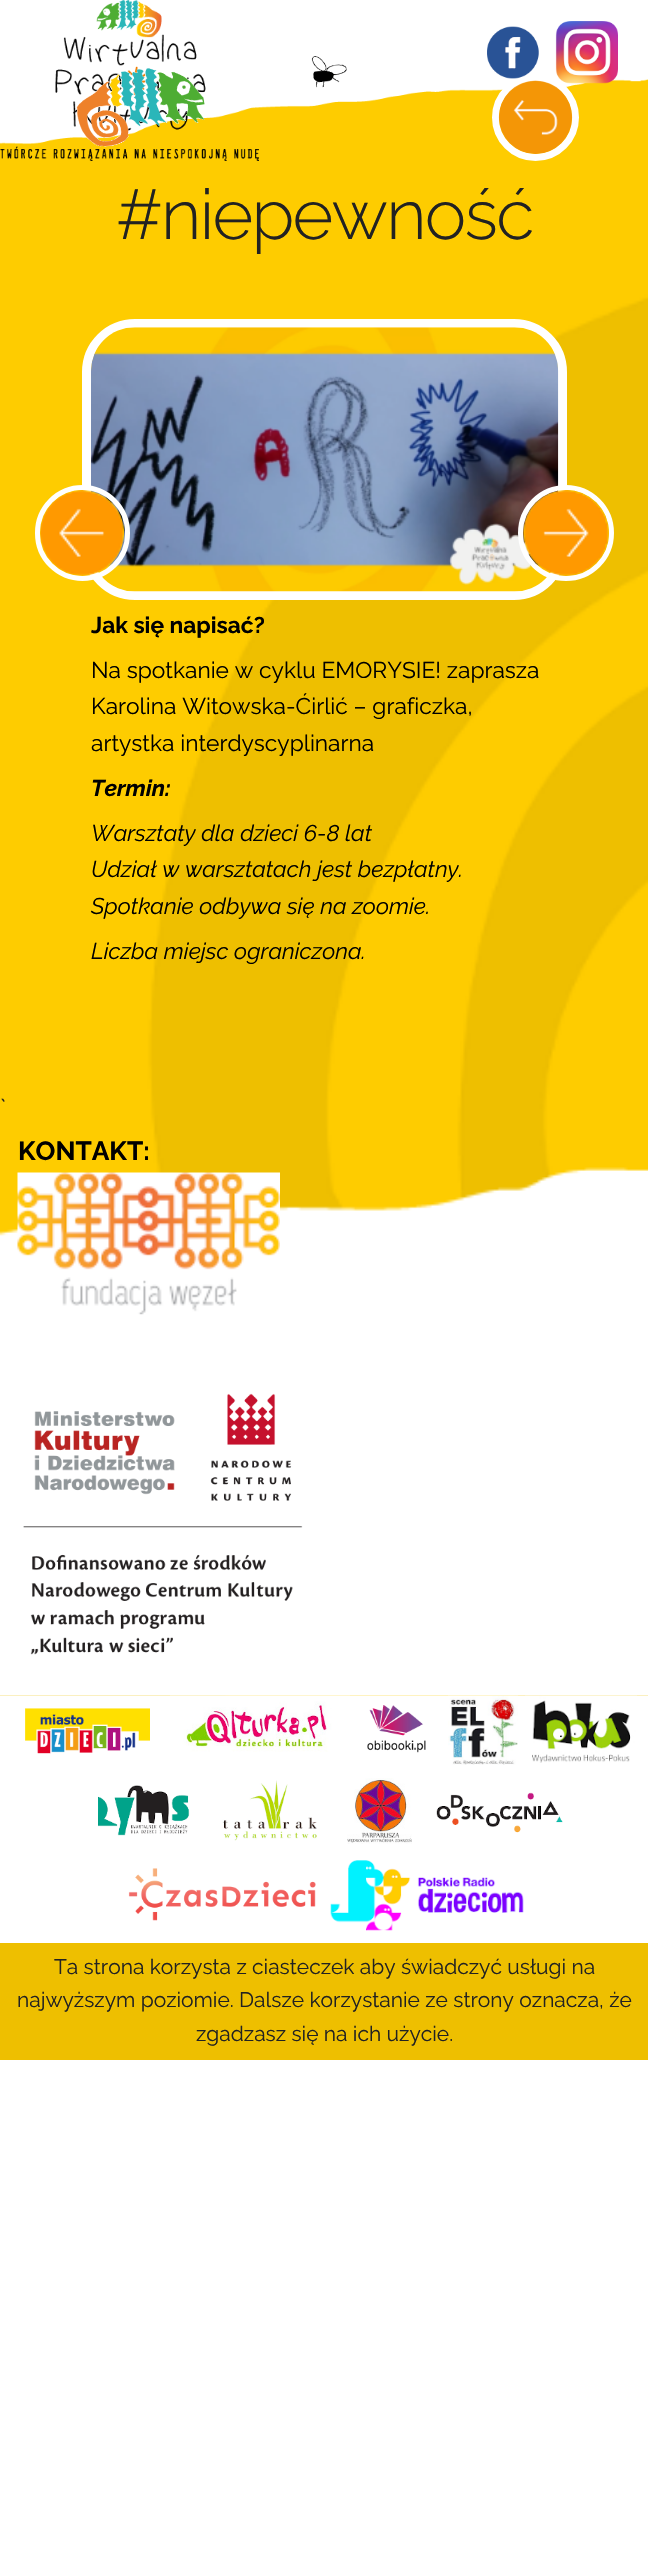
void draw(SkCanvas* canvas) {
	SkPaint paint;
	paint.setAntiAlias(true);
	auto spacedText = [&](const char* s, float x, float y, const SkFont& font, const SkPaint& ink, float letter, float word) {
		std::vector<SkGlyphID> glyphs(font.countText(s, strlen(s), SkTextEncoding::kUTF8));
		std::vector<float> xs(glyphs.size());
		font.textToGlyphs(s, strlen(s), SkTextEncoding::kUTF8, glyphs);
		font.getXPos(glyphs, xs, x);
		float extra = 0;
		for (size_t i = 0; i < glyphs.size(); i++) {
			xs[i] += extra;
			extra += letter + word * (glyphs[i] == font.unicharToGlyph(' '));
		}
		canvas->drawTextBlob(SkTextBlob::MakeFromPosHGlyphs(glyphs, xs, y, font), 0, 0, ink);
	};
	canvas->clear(0xffffffff);
	canvas->drawImageRect(SkImages::DeferredFromEncodedData(SkData::MakeFromFileName("img1.png")), SkRect::MakeXYWH(0, 79, 648, 1981), SkSamplingOptions());
	canvas->drawImageRect(SkImages::DeferredFromEncodedData(SkData::MakeFromFileName("img2.png")), SkRect::MakeXYWH(0, 0, 648, 145), SkSamplingOptions());
	canvas->drawImageRect(SkImages::DeferredFromEncodedData(SkData::MakeFromFileName("img3.png")), SkRect::MakeXYWH(0, 0, 259, 161), SkSamplingOptions());
	paint.setStroke(true);
	paint.setStrokeWidth(7);
	paint.setColor(0xffffffff);
	canvas->drawCircle(535.5, 117.5, 40, paint);
	canvas->drawImageRect(SkImages::DeferredFromEncodedData(SkData::MakeFromFileName("img4.png")), SkRect::MakeXYWH(487, 26, 52, 53), SkSamplingOptions());
	canvas->drawImageRect(SkImages::DeferredFromEncodedData(SkData::MakeFromFileName("img7.png")), SkRect::MakeXYWH(498, 80, 75, 74), SkSamplingOptions());
	canvas->drawImageRect(SkImages::DeferredFromEncodedData(SkData::MakeFromFileName("img5.png")), SkRect::MakeXYWH(555, 21, 63, 63), SkSamplingOptions());
	canvas->drawImageRect(SkImages::DeferredFromEncodedData(SkData::MakeFromFileName("img6.png")), SkRect::MakeXYWH(76, 56, 271, 91), SkSamplingOptions());
	SkFont f1(fontMgr->matchFamilyStyle("Raleway", SkFontStyle(300, SkFontStyle::kNormal_Width, SkFontStyle::kUpright_Slant)), 70);
	f1.setSubpixel(true);
	paint.setStroke(false);
	paint.setColor(0xff222222);
	spacedText("#niepewność", 116, 239, f1, paint, -1.75, 0);
	paint.setStroke(true);
	paint.setStrokeWidth(9);
	paint.setColor(0xffffffff);
	canvas->drawRoundRect(SkRect::MakeXYWH(86.5, 323.5, 476, 272), 48.5, 48.5, paint);
	canvas->drawImageRect(SkImages::DeferredFromEncodedData(SkData::MakeFromFileName("img10.png")), SkRect::MakeXYWH(91, 327, 468, 265), SkSamplingOptions());
	paint.setStrokeWidth(5);
	canvas->drawRoundRect(SkRect::MakeXYWH(37.5, 487.5, 90, 91), 45, 45, paint);
	canvas->drawImageRect(SkImages::DeferredFromEncodedData(SkData::MakeFromFileName("img8.png")), SkRect::MakeXYWH(40, 490, 85, 86), SkSamplingOptions());
	canvas->drawCircle(566, 533, 45.5, paint);
	canvas->drawImageRect(SkImages::DeferredFromEncodedData(SkData::MakeFromFileName("img9.png")), SkRect::MakeXYWH(523, 490, 86, 86), SkSamplingOptions());
	SkFont f2(fontMgr->matchFamilyStyle("Raleway", SkFontStyle::Bold()), 22.75);
	f2.setSubpixel(true);
	paint.setStroke(false);
	paint.setColor(0xff000000);
	canvas->drawString("Jak się napisać?", 91, 633, f2, paint);
	SkFont f3(fontMgr->matchFamilyStyle("Raleway", SkFontStyle::Normal()), 22.75);
	f3.setSubpixel(true);
	canvas->drawString("Na spotkanie w cyklu EMORYSIE! zaprasza", 91, 678, f3, paint);
	canvas->drawString("Karolina Witowska-Ćirlić – graficzka,", 91, 714, f3, paint);
	canvas->drawString("artystka interdyscyplinarna", 91, 751, f3, paint);
	SkFont f4(fontMgr->matchFamilyStyle("Raleway", SkFontStyle::BoldItalic()), 22.75);
	f4.setSubpixel(true);
	canvas->drawString("Termin:", 91, 796, f4, paint);
	SkFont f5(fontMgr->matchFamilyStyle("Raleway", SkFontStyle::Italic()), 22.75);
	f5.setSubpixel(true);
	canvas->drawString("Warsztaty dla dzieci 6-8 lat", 91, 841, f5, paint);
	canvas->drawString("Udział w warsztatach jest bezpłatny.", 91, 877, f5, paint);
	canvas->drawString("Spotkanie odbywa się na zoomie.", 91, 914, f5, paint);
	canvas->drawString("Liczba miejsc ograniczona.", 91, 959, f5, paint);
	SkFont f6(fontMgr->matchFamilyStyle("Raleway", SkFontStyle::Normal()), 26.25);
	f6.setSubpixel(true);
	paint.setColor(0xff222222);
	canvas->drawString("`", 0, 1118, f6, paint);
	canvas->drawImageRect(SkImages::DeferredFromEncodedData(SkData::MakeFromFileName("img11.png")), SkRect::MakeXYWH(0, 1167, 648, 529), SkSamplingOptions());
	SkFont f7(fontMgr->matchFamilyStyle("Raleway", SkFontStyle::Bold()), 26.25);
	f7.setSubpixel(true);
	paint.setColor(0xff000000);
	canvas->drawString("KONTAKT:", 18, 1160, f7, paint);
	canvas->drawImageRect(SkImages::DeferredFromEncodedData(SkData::MakeFromFileName("img12.png")), SkRect::MakeXYWH(17, 1172, 263, 143), SkSamplingOptions());
	canvas->drawImageRect(SkImages::DeferredFromEncodedData(SkData::MakeFromFileName("img13.png")), SkRect::MakeXYWH(23, 1393, 280, 262), SkSamplingOptions());
	paint.setColor(0xffffffff);
	canvas->drawRect(SkRect::MakeXYWH(0, 1696, 648, 247), paint);
	canvas->drawImageRect(SkImages::DeferredFromEncodedData(SkData::MakeFromFileName("img14.png")), SkRect::MakeXYWH(25, 1708, 125, 46), SkSamplingOptions());
	canvas->drawImageRect(SkImages::DeferredFromEncodedData(SkData::MakeFromFileName("img15.png")), SkRect::MakeXYWH(170, 1695, 180, 57), SkSamplingOptions());
	canvas->drawImageRect(SkImages::DeferredFromEncodedData(SkData::MakeFromFileName("img16.png")), SkRect::MakeXYWH(367, 1705, 59, 48), SkSamplingOptions());
	canvas->drawImageRect(SkImages::DeferredFromEncodedData(SkData::MakeFromFileName("img17.png")), SkRect::MakeXYWH(448, 1695, 70, 70), SkSamplingOptions());
	canvas->drawImageRect(SkImages::DeferredFromEncodedData(SkData::MakeFromFileName("img18.png")), SkRect::MakeXYWH(525, 1695, 112, 68), SkSamplingOptions());
	canvas->drawImageRect(SkImages::DeferredFromEncodedData(SkData::MakeFromFileName("img19.png")), SkRect::MakeXYWH(98, 1785, 92, 51), SkSamplingOptions());
	canvas->drawImageRect(SkImages::DeferredFromEncodedData(SkData::MakeFromFileName("img20.png")), SkRect::MakeXYWH(222, 1780, 95, 61), SkSamplingOptions());
	canvas->drawImageRect(SkImages::DeferredFromEncodedData(SkData::MakeFromFileName("img21.png")), SkRect::MakeXYWH(347, 1778, 65, 66), SkSamplingOptions());
	canvas->drawImageRect(SkImages::DeferredFromEncodedData(SkData::MakeFromFileName("img22.png")), SkRect::MakeXYWH(436, 1792, 127, 41), SkSamplingOptions());
	canvas->drawImageRect(SkImages::DeferredFromEncodedData(SkData::MakeFromFileName("img23.png")), SkRect::MakeXYWH(128, 1868, 188, 53), SkSamplingOptions());
	canvas->drawImageRect(SkImages::DeferredFromEncodedData(SkData::MakeFromFileName("img24.png")), SkRect::MakeXYWH(330, 1860, 194, 71), SkSamplingOptions());
	SkFont f8(fontMgr->matchFamilyStyle("Raleway", SkFontStyle::Normal()), 21);
	f8.setSubpixel(true);
	paint.setColor(0xff222222);
	canvas->drawString("Ta strona korzysta z ciasteczek aby świadczyć usługi na", 54, 1974, f8, paint);
	canvas->drawString("najwyższym poziomie. Dalsze korzystanie ze strony oznacza, że", 17, 2007, f8, paint);
	canvas->drawString("zgadzasz się na ich użycie.", 196, 2041, f8, paint);
}
